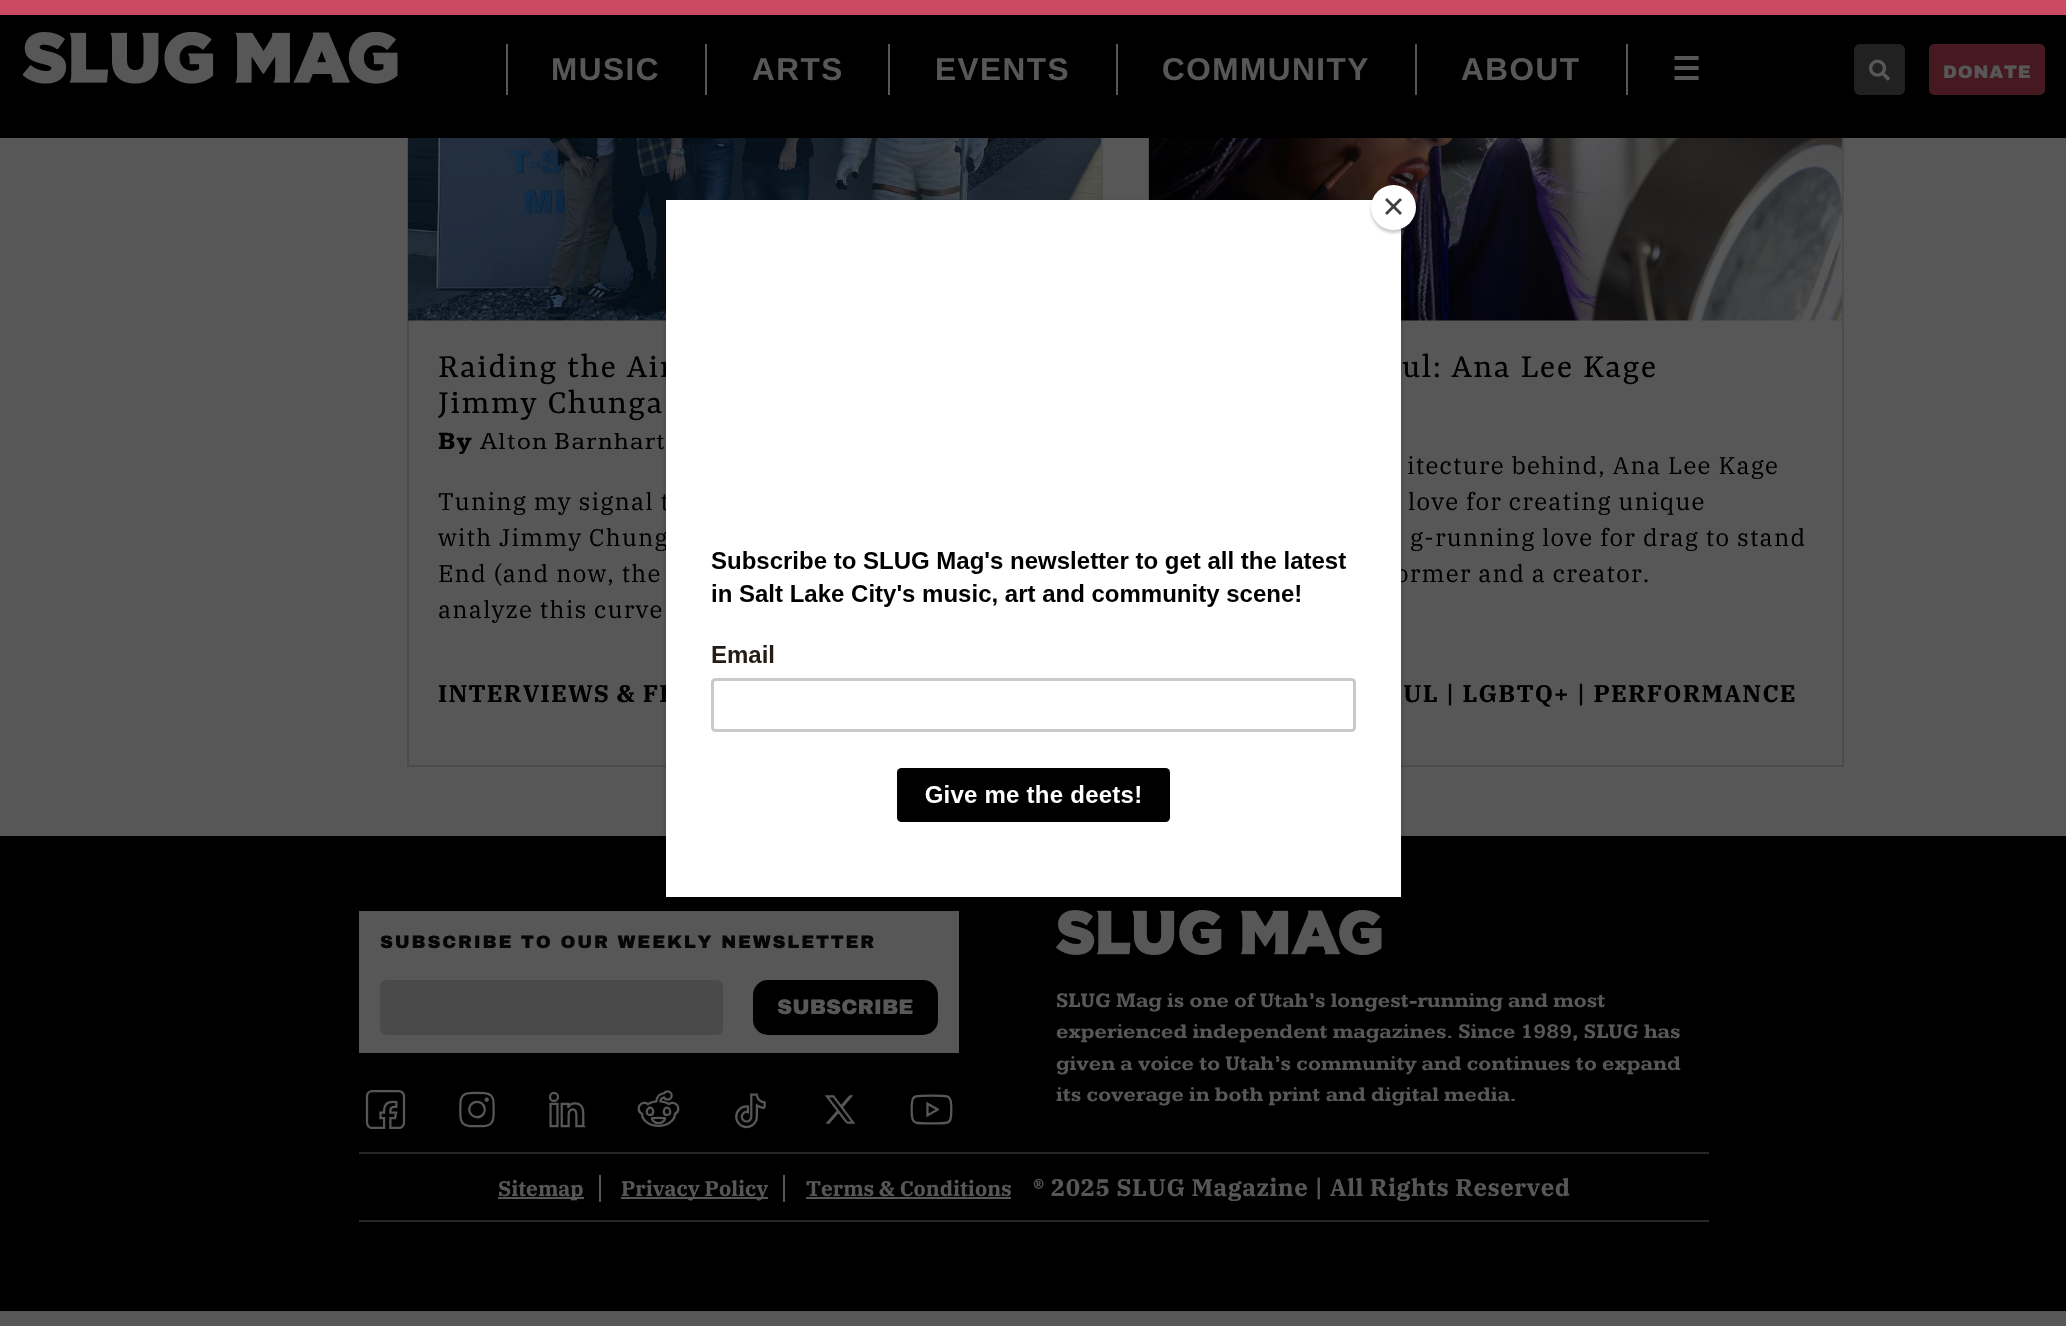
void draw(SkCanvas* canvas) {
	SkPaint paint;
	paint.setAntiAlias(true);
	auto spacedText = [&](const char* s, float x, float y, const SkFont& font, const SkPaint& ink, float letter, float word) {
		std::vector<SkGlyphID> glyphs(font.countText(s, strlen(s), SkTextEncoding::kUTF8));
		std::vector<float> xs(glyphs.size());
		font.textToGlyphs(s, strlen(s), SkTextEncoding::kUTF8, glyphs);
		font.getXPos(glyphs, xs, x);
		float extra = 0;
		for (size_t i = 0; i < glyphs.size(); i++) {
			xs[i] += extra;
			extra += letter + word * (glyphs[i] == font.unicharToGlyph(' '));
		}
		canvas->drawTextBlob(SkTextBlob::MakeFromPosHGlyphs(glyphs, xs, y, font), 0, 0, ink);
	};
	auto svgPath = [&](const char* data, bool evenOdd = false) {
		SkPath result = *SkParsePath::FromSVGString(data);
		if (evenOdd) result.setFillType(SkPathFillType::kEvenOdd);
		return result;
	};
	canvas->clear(0xff575757);
	paint.setStroke(true);
	paint.setStrokeWidth(2);
	paint.setColor(0xff4c4c4c);
	canvas->drawRect(SkRect::MakeXYWH(408, -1, 694, 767), paint);
	canvas->drawRect(SkRect::MakeXYWH(1149, -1, 694, 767), paint);
	paint.setStroke(false);
	paint.setColor(0xffce4a62);
	canvas->drawRect(SkRect::MakeXYWH(0, 0, 2066, 15), paint);
	paint.setColor(0xff000000);
	canvas->drawRect(SkRect::MakeXYWH(0, 15, 2066, 123), paint);
	canvas->drawImageRect(SkImages::DeferredFromEncodedData(SkData::MakeFromFileName("img1.png")), SkRect::MakeXYWH(23, 32, 375, 52), SkSamplingOptions());
	paint.setColor(0xff575757);
	canvas->drawRect(SkRect::MakeXYWH(506, 44, 2, 51), paint);
	SkFont f1(fontMgr->matchFamilyStyle("Liberation Sans", SkFontStyle::Bold()), 31.5);
	f1.setSubpixel(true);
	spacedText("MUSIC", 551, 80, f1, paint, 1.5, 0);
	canvas->drawRect(SkRect::MakeXYWH(705, 44, 2, 51), paint);
	spacedText("ARTS", 752, 80, f1, paint, 1.5, 0);
	canvas->drawRect(SkRect::MakeXYWH(888, 44, 2, 51), paint);
	spacedText("EVENTS", 935, 80, f1, paint, 1.5, 0);
	canvas->drawRect(SkRect::MakeXYWH(1116, 44, 2, 51), paint);
	spacedText("COMMUNITY", 1162, 80, f1, paint, 1.5, 0);
	canvas->drawRect(SkRect::MakeXYWH(1415, 44, 2, 51), paint);
	spacedText("ABOUT", 1461, 80, f1, paint, 1.5, 0);
	canvas->drawRect(SkRect::MakeXYWH(1626, 44, 2, 51), paint);
	SkFont f2(fontMgr->matchFamilyStyle("DejaVu Sans", SkFontStyle::Bold()), 31.5);
	f2.setSubpixel(true);
	spacedText("☰", 1672, 80, f2, paint, 1.5, 0);
	paint.setColor(0xff212121);
	canvas->drawRoundRect(SkRect::MakeXYWH(1854, 44, 51, 51), 6, 6, paint);
	canvas->drawImageRect(SkImages::DeferredFromEncodedData(SkData::MakeFromFileName("img2.png")), SkRect::MakeXYWH(1869, 59, 21, 22), SkSamplingOptions());
	paint.setColor(0xff461921);
	canvas->drawRoundRect(SkRect::MakeXYWH(1929, 44, 116, 51), 5, 5, paint);
	SkFont f3(fontMgr->matchFamilyStyle("Archivo Black", SkFontStyle(900, SkFontStyle::kNormal_Width, SkFontStyle::kUpright_Slant)), 18);
	f3.setSubpixel(true);
	paint.setColor(0xff575757);
	spacedText("DONATE", 1943, 78, f3, paint, 0.75, 0);
	canvas->drawImageRect(SkImages::DeferredFromEncodedData(SkData::MakeFromFileName("img4.png")), SkRect::MakeXYWH(408, 138, 693, 183), SkSamplingOptions());
	canvas->drawImageRect(SkImages::DeferredFromEncodedData(SkData::MakeFromFileName("img5.png")), SkRect::MakeXYWH(1149, 138, 693, 183), SkSamplingOptions());
	paint.setColor(0xff000000);
	canvas->drawRect(SkRect::MakeXYWH(0, 836, 2066, 475), paint);
	paint.setColor(0x33000000);
	paint.setMaskFilter(SkMaskFilter::MakeBlur(kNormal_SkBlurStyle, 3));
	canvas->drawRect(SkRect::MakeXYWH(666, 203, 735, 697), paint);
	paint.setMaskFilter(nullptr);
	SkFont f4(fontMgr->matchFamilyStyle("Rasa", SkFontStyle::Normal()), 36);
	f4.setSubpixel(true);
	paint.setColor(0xff000000);
	spacedText("Raiding the Air", 438, 377, f4, paint, 1.5, 0);
	SkFont f5(fontMgr->matchFamilyStyle("IBM Plex Serif", SkFontStyle::Normal()), 24);
	f5.setSubpixel(true);
	spacedText("Tuning my signal t", 438, 510, f5, paint, 1.2, 0);
	spacedText("with Jimmy Chung", 438, 546, f5, paint, 1.2, 0);
	SkFont f6(fontMgr->matchFamilyStyle("IBM Plex Serif", SkFontStyle::Bold()), 24);
	f6.setSubpixel(true);
	spacedText("INTERVIEWS & FE", 438, 702, f6, paint, 1.2, 0);
	spacedText("ormer and a creator.", 1395, 582, f5, paint, 1.2, 0);
	canvas->drawImageRect(SkImages::DeferredFromEncodedData(SkData::MakeFromFileName("img3.png")), SkRect::MakeXYWH(666, 200, 735, 697), SkSamplingOptions());
	paint.setColor(0x33000000);
	paint.setMaskFilter(SkMaskFilter::MakeBlur(kNormal_SkBlurStyle, 1.5));
	canvas->drawRoundRect(SkRect::MakeXYWH(1371, 188, 45, 45), 22.5, 22.5, paint);
	paint.setMaskFilter(nullptr);
	paint.setColor(0xffffffff);
	canvas->drawCircle(1393.5, 207.5, 22.5, paint);
	paint.setColor(0xff414141);
	canvas->drawPath(svgPath("M1400 198L1402 200L1387 215L1385 213Z"), paint);
	canvas->drawPath(svgPath("M1385 200L1387 198L1402 213L1400 215Z"), paint);
	paint.setColor(0xff000000);
	spacedText("Jimmy Chunga", 438, 413, f4, paint, 1.5, 0);
	SkFont f7(fontMgr->matchFamilyStyle("Kameron", SkFontStyle::Bold()), 25.25);
	f7.setSubpixel(true);
	spacedText("By", 438, 449, f7, paint, 1.5, 0);
	SkFont f8(fontMgr->matchFamilyStyle("Kameron", SkFontStyle::Normal()), 25.25);
	f8.setSubpixel(true);
	spacedText("Alton Barnhart", 480, 449, f8, paint, 1.5, 0);
	spacedText("End (and now, the", 438, 582, f5, paint, 1.2, 0);
	spacedText("analyze this curve", 438, 618, f5, paint, 1.2, 0);
	spacedText("ul: Ana Lee Kage", 1402, 377, f4, paint, 1.5, 0);
	spacedText("itecture behind, Ana Lee Kage", 1407, 474, f5, paint, 1.2, 0);
	spacedText("love for creating unique", 1408, 510, f5, paint, 1.2, 0);
	spacedText("g-running love for drag to stand", 1410, 546, f5, paint, 1.2, 0);
	spacedText("UL | LGBTQ+ | PERFORMANCE", 1403, 702, f6, paint, 1.2, 0);
	paint.setColor(0xff575757);
	canvas->drawRect(SkRect::MakeXYWH(359, 911, 600, 142), paint);
	paint.setColor(0xff060606);
	spacedText("SUBSCRIBE TO OUR WEEKLY NEWSLETTER", 380, 948, f3, paint, 1.8, 0);
	paint.setColor(0xff4a4a4a);
	canvas->drawRoundRect(SkRect::MakeXYWH(380, 980, 343, 55), 6, 6, paint);
	paint.setColor(0xff000000);
	canvas->drawRoundRect(SkRect::MakeXYWH(753, 980, 185, 55), 15, 15, paint);
	SkFont f9(fontMgr->matchFamilyStyle("Archivo Black", SkFontStyle(900, SkFontStyle::kNormal_Width, SkFontStyle::kUpright_Slant)), 21);
	f9.setSubpixel(true);
	paint.setColor(0xff575757);
	canvas->drawString("SUBSCRIBE", 777, 1014, f9, paint);
	canvas->drawImageRect(SkImages::DeferredFromEncodedData(SkData::MakeFromFileName("img6.png")), SkRect::MakeXYWH(365, 1090, 41, 39), SkSamplingOptions());
	canvas->drawImageRect(SkImages::DeferredFromEncodedData(SkData::MakeFromFileName("img7.png")), SkRect::MakeXYWH(459, 1091, 36, 37), SkSamplingOptions());
	canvas->drawImageRect(SkImages::DeferredFromEncodedData(SkData::MakeFromFileName("img8.png")), SkRect::MakeXYWH(548, 1091, 38, 37), SkSamplingOptions());
	canvas->drawImageRect(SkImages::DeferredFromEncodedData(SkData::MakeFromFileName("img9.png")), SkRect::MakeXYWH(637, 1090, 43, 37), SkSamplingOptions());
	canvas->drawImageRect(SkImages::DeferredFromEncodedData(SkData::MakeFromFileName("img10.png")), SkRect::MakeXYWH(735, 1093, 31, 36), SkSamplingOptions());
	canvas->drawImageRect(SkImages::DeferredFromEncodedData(SkData::MakeFromFileName("img11.png")), SkRect::MakeXYWH(824, 1095, 32, 29), SkSamplingOptions());
	canvas->drawImageRect(SkImages::DeferredFromEncodedData(SkData::MakeFromFileName("img12.png")), SkRect::MakeXYWH(910, 1094, 43, 31), SkSamplingOptions());
	canvas->drawImageRect(SkImages::DeferredFromEncodedData(SkData::MakeFromFileName("img13.png")), SkRect::MakeXYWH(1056, 910, 326, 45), SkSamplingOptions());
	SkFont f10(fontMgr->matchFamilyStyle("Kameron", SkFontStyle::Bold()), 21);
	f10.setSubpixel(true);
	canvas->drawString("SLUG Mag is one of Utah’s longest-running and most", 1056, 1007, f10, paint);
	canvas->drawString("experienced independent magazines. Since 1989, SLUG has", 1056, 1038, f10, paint);
	canvas->drawString("given a voice to Utah’s community and continues to expand", 1056, 1070, f10, paint);
	canvas->drawString("its coverage in both print and digital media.", 1056, 1101, f10, paint);
	paint.setColor(0xff262626);
	canvas->drawRect(SkRect::MakeXYWH(359, 1152, 1350, 2), paint);
	paint.setColor(0xff575757);
	canvas->drawRect(SkRect::MakeXYWH(498, 1197, 86, 2), paint);
	SkFont f11(fontMgr->matchFamilyStyle("IBM Plex Serif", SkFontStyle::Bold()), 21);
	f11.setSubpixel(true);
	canvas->drawString("Sitemap", 498, 1196, f11, paint);
	canvas->drawRect(SkRect::MakeXYWH(599, 1175, 2, 27), paint);
	canvas->drawRect(SkRect::MakeXYWH(621, 1197, 147, 2), paint);
	canvas->drawString("Privacy Policy", 621, 1196, f11, paint);
	canvas->drawRect(SkRect::MakeXYWH(783, 1175, 2, 27), paint);
	canvas->drawString("Terms & Conditions", 806, 1196, f11, paint);
	canvas->drawRect(SkRect::MakeXYWH(806, 1197, 205, 2), paint);
	spacedText("® 2025 SLUG Magazine | All Rights Reserved", 1033, 1196, f6, paint, 0.5, 0);
	paint.setColor(0xff262626);
	canvas->drawRect(SkRect::MakeXYWH(359, 1220, 1350, 2), paint);
}
